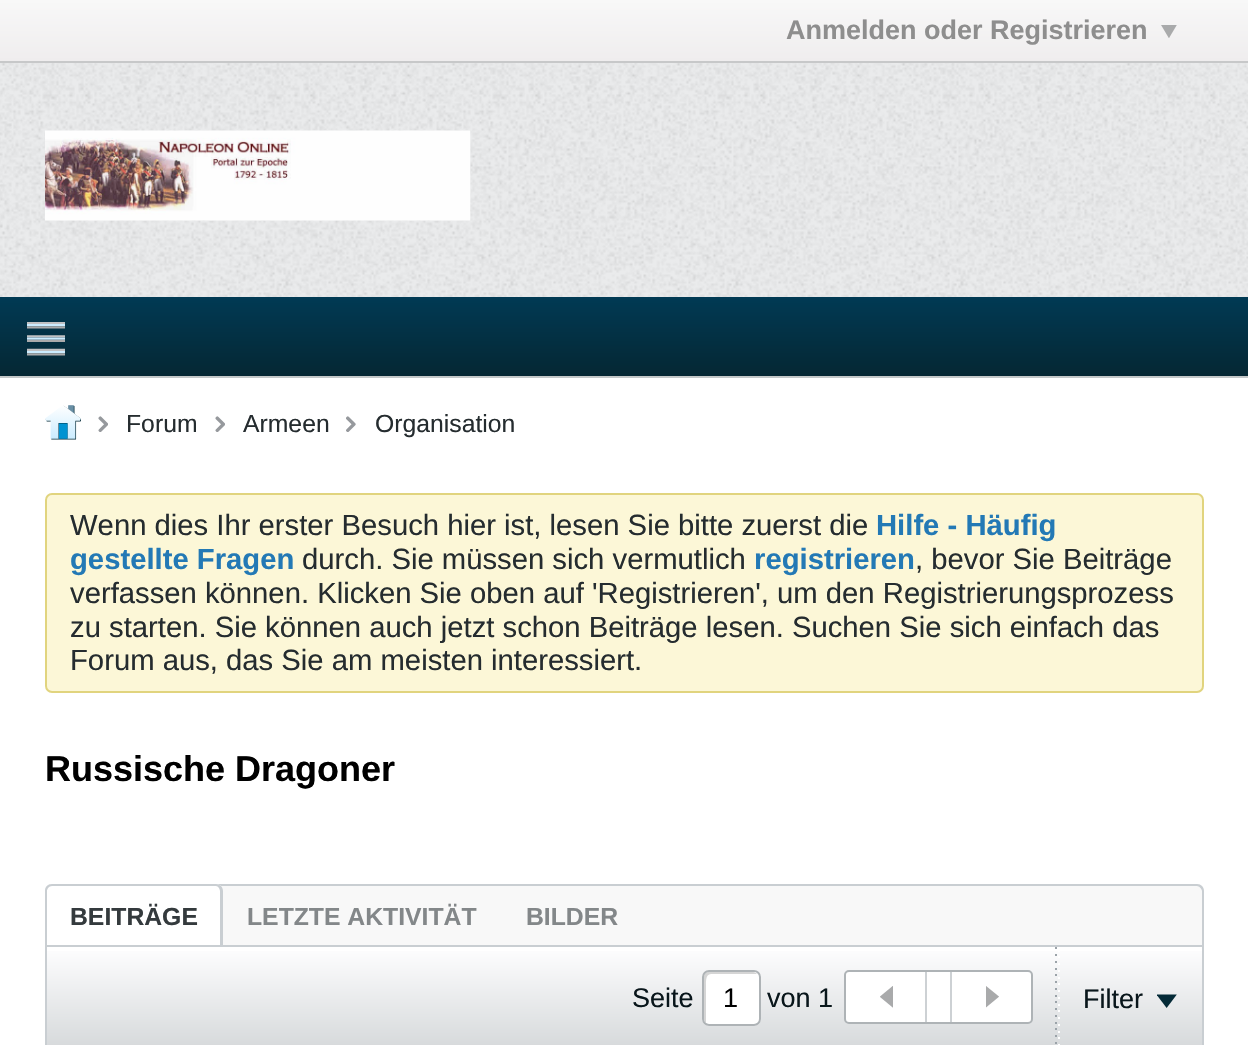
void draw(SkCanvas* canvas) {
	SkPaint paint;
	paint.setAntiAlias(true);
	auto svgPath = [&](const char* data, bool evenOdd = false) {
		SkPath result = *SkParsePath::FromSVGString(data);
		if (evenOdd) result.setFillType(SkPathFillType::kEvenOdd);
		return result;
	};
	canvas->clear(0xffffffff);
	{
		const SkColor colors[] = {0xfff8f8f8, 0xffefedee};
		const float stops[] = {0, 1};
		const SkPoint ends[] = {{624, 0}, {624, 61}};
		paint.setShader(SkGradientShader::MakeLinear(ends, colors, stops, 2, SkTileMode::kClamp));
		paint.setAlpha(255);
	}
	canvas->drawRect(SkRect::MakeXYWH(0, 0, 1248, 61), paint);
	paint.setShader(nullptr);
	paint.setColor(0xffc7c8c9);
	canvas->drawRect(SkRect::MakeXYWH(0, 61, 1248, 2), paint);
	SkFont f1(fontMgr->matchFamilyStyle("Liberation Sans", SkFontStyle::Bold()), 27);
	f1.setSubpixel(true);
	paint.setColor(0xff8e8e8e);
	canvas->drawString("Anmelden oder Registrieren", 786, 39, f1, paint);
	canvas->drawImageRect(SkImages::DeferredFromEncodedData(SkData::MakeFromFileName("img1.png")), SkRect::MakeXYWH(1161, 25, 16, 13), SkSamplingOptions());
	paint.setColor(0xffeaebec);
	canvas->drawRect(SkRect::MakeXYWH(0, 63, 1248, 234), paint);
	canvas->drawImageRect(SkImages::DeferredFromEncodedData(SkData::MakeFromFileName("img2.png")), SkRect::MakeXYWH(0, 63, 1248, 234), SkSamplingOptions());
	canvas->drawImageRect(SkImages::DeferredFromEncodedData(SkData::MakeFromFileName("img3.png")), SkRect::MakeXYWH(45, 130, 426, 91), SkSamplingOptions());
	{
		const SkColor colors[] = {0xff013a54, 0xff052733};
		const float stops[] = {0, 1};
		const SkPoint ends[] = {{624, 297}, {624, 376}};
		paint.setShader(SkGradientShader::MakeLinear(ends, colors, stops, 2, SkTileMode::kClamp));
		paint.setAlpha(255);
	}
	canvas->drawRect(SkRect::MakeXYWH(0, 297, 1248, 79), paint);
	paint.setShader(nullptr);
	paint.setColor(0xffc4c7c8);
	canvas->drawRect(SkRect::MakeXYWH(0, 376, 1248, 2), paint);
	canvas->drawImageRect(SkImages::DeferredFromEncodedData(SkData::MakeFromFileName("img4.png")), SkRect::MakeXYWH(27, 322, 38, 34), SkSamplingOptions());
	canvas->drawImageRect(SkImages::DeferredFromEncodedData(SkData::MakeFromFileName("img5.png")), SkRect::MakeXYWH(45, 405, 36, 35), SkSamplingOptions());
	canvas->drawImageRect(SkImages::DeferredFromEncodedData(SkData::MakeFromFileName("img6.png")), SkRect::MakeXYWH(98, 416, 10, 16), SkSamplingOptions());
	SkFont f2(fontMgr->matchFamilyStyle("Liberation Sans", SkFontStyle::Normal()), 24.75);
	f2.setSubpixel(true);
	paint.setColor(0xff252c2f);
	canvas->drawString("Forum", 126, 432, f2, paint);
	canvas->drawImageRect(SkImages::DeferredFromEncodedData(SkData::MakeFromFileName("img6.png")), SkRect::MakeXYWH(215, 416, 10, 16), SkSamplingOptions());
	canvas->drawString("Armeen", 243, 432, f2, paint);
	canvas->drawImageRect(SkImages::DeferredFromEncodedData(SkData::MakeFromFileName("img7.png")), SkRect::MakeXYWH(346, 416, 10, 16), SkSamplingOptions());
	canvas->drawString("Organisation", 375, 432, f2, paint);
	paint.setColor(0xfffcf7d7);
	canvas->drawRoundRect(SkRect::MakeXYWH(46, 494, 1157, 198), 6, 6, paint);
	paint.setStroke(true);
	paint.setStrokeWidth(2);
	paint.setColor(0xffe1d47e);
	canvas->drawRoundRect(SkRect::MakeXYWH(46, 494, 1157, 198), 6, 6, paint);
	SkFont f3(fontMgr->matchFamilyStyle("Liberation Sans", SkFontStyle::Normal()), 29.25);
	f3.setSubpixel(true);
	paint.setStroke(false);
	paint.setColor(0xff252c2f);
	canvas->drawString("Wenn dies Ihr erster Besuch hier ist, lesen Sie bitte zuerst die", 70, 535, f3, paint);
	SkFont f4(fontMgr->matchFamilyStyle("Liberation Sans", SkFontStyle::Bold()), 29.25);
	f4.setSubpixel(true);
	paint.setColor(0xff2379b5);
	canvas->drawString("Hilfe - Häufig", 876, 535, f4, paint);
	canvas->drawString("gestellte Fragen", 70, 569, f4, paint);
	paint.setColor(0xff252c2f);
	canvas->drawString("durch. Sie müssen sich vermutlich", 302, 569, f3, paint);
	paint.setColor(0xff2379b5);
	canvas->drawString("registrieren", 754, 569, f4, paint);
	paint.setColor(0xff252c2f);
	canvas->drawString(", bevor Sie Beiträge", 915, 569, f3, paint);
	canvas->drawString("verfassen können. Klicken Sie oben auf 'Registrieren', um den Registrierungsprozess", 70, 603, f3, paint);
	canvas->drawString("zu starten. Sie können auch jetzt schon Beiträge lesen. Suchen Sie sich einfach das", 70, 637, f3, paint);
	canvas->drawString("Forum aus, das Sie am meisten interessiert.", 70, 670, f3, paint);
	SkFont f5(fontMgr->matchFamilyStyle("Liberation Sans", SkFontStyle::Bold()), 36);
	f5.setSubpixel(true);
	paint.setColor(0xff000000);
	canvas->drawString("Russische Dragoner", 45, 781, f5, paint);
	paint.setColor(0xfff8f8f8);
	canvas->drawPath(svgPath("M52 884H1197C1201 884 1204 887 1204 891V945H45V891C45 887 48 884 52 884Z"), paint);
	paint.setColor(0xffc9ced2);
	canvas->drawPath(svgPath("M52 884H1197C1201 884 1204 887 1204 891V945H45V891C45 887 48 884 52 884ZM52 886H1197C1199 886 1202 889 1202 891V945H47V891C47 889 49 886 52 886Z", true), paint);
	paint.setColor(0xffffffff);
	canvas->drawPath(svgPath("M52 884H216C220 884 223 887 223 891V945H45V891C45 887 48 884 52 884Z"), paint);
	paint.setColor(0xffc9ced2);
	canvas->drawPath(svgPath("M52 884H216C220 884 223 887 223 891V945H45V891C45 887 48 884 52 884ZM52 886H216C218 886 220 889 220 891V945H47V891C47 889 49 886 52 886Z", true), paint);
	SkFont f6(fontMgr->matchFamilyStyle("Liberation Sans", SkFontStyle::Bold()), 24.75);
	f6.setSubpixel(true);
	paint.setColor(0xff343a3d);
	canvas->drawString("BEITRÄGE", 70, 925, f6, paint);
	paint.setColor(0xff838789);
	canvas->drawString("LETZTE AKTIVITÄT", 247, 925, f6, paint);
	canvas->drawString("BILDER", 526, 925, f6, paint);
	{
		const SkColor colors[] = {0xfffefeff, 0xffd5d8da};
		const float stops[] = {0, 1};
		const SkPoint ends[] = {{624, 947}, {624, 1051}};
		paint.setShader(SkGradientShader::MakeLinear(ends, colors, stops, 2, SkTileMode::kClamp));
		paint.setAlpha(255);
	}
	canvas->drawRect(SkRect::MakeXYWH(47, 951, 1155, 94), paint);
	paint.setStroke(true);
	paint.setShader(nullptr);
	paint.setColor(0xffc9ced2);
	canvas->drawRect(SkRect::MakeXYWH(46, 946, 1157, 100), paint);
	SkFont f7(fontMgr->matchFamilyStyle("Liberation Sans", SkFontStyle::Normal()), 27);
	f7.setSubpixel(true);
	paint.setStroke(false);
	paint.setColor(0xff09161b);
	canvas->drawString("Seite", 632, 1007, f7, paint);
	paint.setColor(0xffffffff);
	canvas->drawRoundRect(SkRect::MakeXYWH(702, 970, 59, 56), 7, 7, paint);
	paint.setColor(0xffd5d5d5);
	canvas->drawPath(svgPath("M711 974H757C756 973 755 972 753 972H709C706 972 704 974 704 977V1019C704 1021 705 1022 706 1023V986C706 983 705 974 711 974Z"), paint);
	paint.setStroke(true);
	paint.setColor(0xffaeb3b6);
	canvas->drawRoundRect(SkRect::MakeXYWH(703, 971, 57, 54), 6, 6, paint);
	paint.setStroke(false);
	paint.setColor(0xff000000);
	canvas->drawString("1", 723, 1007, f7, paint);
	paint.setColor(0xff09161b);
	canvas->drawString("von 1", 767, 1007, f7, paint);
	paint.setColor(0xffffffff);
	canvas->drawRoundRect(SkRect::MakeXYWH(845, 971, 187, 52), 4, 4, paint);
	paint.setStroke(true);
	paint.setColor(0xffaeb3b6);
	canvas->drawRoundRect(SkRect::MakeXYWH(845, 971, 187, 52), 4, 4, paint);
	paint.setStroke(false);
	paint.setColor(0xffcdd1d4);
	canvas->drawRect(SkRect::MakeXYWH(925, 972, 2, 50), paint);
	canvas->drawImageRect(SkImages::DeferredFromEncodedData(SkData::MakeFromFileName("img8.png")), SkRect::MakeXYWH(880, 986, 13, 22), SkSamplingOptions());
	canvas->drawRect(SkRect::MakeXYWH(950, 972, 2, 50), paint);
	canvas->drawImageRect(SkImages::DeferredFromEncodedData(SkData::MakeFromFileName("img9.png")), SkRect::MakeXYWH(986, 986, 13, 22), SkSamplingOptions());
	paint.setColor(0xff9ba3a9);
	canvas->drawRect(SkRect::MakeXYWH(1055, 947, 2, 2), paint);
	canvas->drawRect(SkRect::MakeXYWH(1055, 954, 2, 2), paint);
	canvas->drawRect(SkRect::MakeXYWH(1055, 961, 2, 2), paint);
	canvas->drawRect(SkRect::MakeXYWH(1055, 968, 2, 2), paint);
	canvas->drawRect(SkRect::MakeXYWH(1055, 974, 2, 2), paint);
	canvas->drawRect(SkRect::MakeXYWH(1055, 981, 2, 2), paint);
	canvas->drawRect(SkRect::MakeXYWH(1055, 988, 2, 2), paint);
	canvas->drawRect(SkRect::MakeXYWH(1055, 995, 2, 2), paint);
	canvas->drawRect(SkRect::MakeXYWH(1055, 1001, 2, 2), paint);
	canvas->drawRect(SkRect::MakeXYWH(1055, 1008, 2, 2), paint);
	canvas->drawRect(SkRect::MakeXYWH(1055, 1015, 2, 2), paint);
	canvas->drawRect(SkRect::MakeXYWH(1055, 1022, 2, 2), paint);
	canvas->drawRect(SkRect::MakeXYWH(1055, 1028, 2, 2), paint);
	canvas->drawRect(SkRect::MakeXYWH(1055, 1035, 2, 2), paint);
	canvas->drawRect(SkRect::MakeXYWH(1055, 1042, 2, 2), paint);
	paint.setColor(0xffffffff);
	canvas->drawRect(SkRect::MakeXYWH(1058, 951, 2, 1), paint);
	canvas->drawRect(SkRect::MakeXYWH(1058, 956, 2, 2), paint);
	canvas->drawRect(SkRect::MakeXYWH(1058, 963, 2, 2), paint);
	canvas->drawRect(SkRect::MakeXYWH(1058, 970, 2, 2), paint);
	canvas->drawRect(SkRect::MakeXYWH(1058, 977, 2, 2), paint);
	canvas->drawRect(SkRect::MakeXYWH(1058, 983, 2, 2), paint);
	canvas->drawRect(SkRect::MakeXYWH(1058, 990, 2, 2), paint);
	canvas->drawRect(SkRect::MakeXYWH(1058, 997, 2, 2), paint);
	canvas->drawRect(SkRect::MakeXYWH(1058, 1004, 2, 2), paint);
	canvas->drawRect(SkRect::MakeXYWH(1058, 1010, 2, 2), paint);
	canvas->drawRect(SkRect::MakeXYWH(1058, 1017, 2, 2), paint);
	canvas->drawRect(SkRect::MakeXYWH(1058, 1024, 2, 2), paint);
	canvas->drawRect(SkRect::MakeXYWH(1058, 1031, 2, 2), paint);
	canvas->drawRect(SkRect::MakeXYWH(1058, 1037, 2, 2), paint);
	canvas->drawRect(SkRect::MakeXYWH(1058, 1044, 2, 1), paint);
	paint.setColor(0xff09161b);
	canvas->drawString("Filter", 1083, 1008, f7, paint);
	canvas->drawImageRect(SkImages::DeferredFromEncodedData(SkData::MakeFromFileName("img10.png")), SkRect::MakeXYWH(1157, 994, 20, 14), SkSamplingOptions());
}
